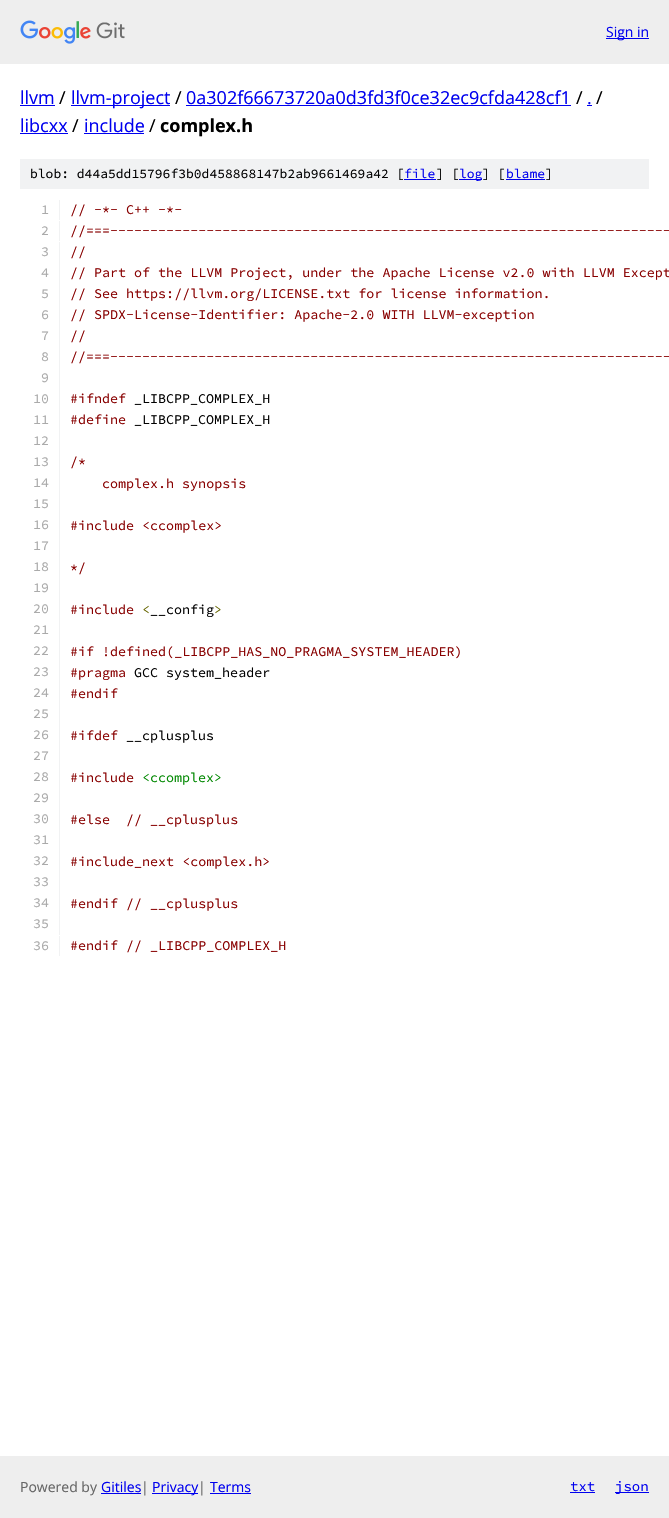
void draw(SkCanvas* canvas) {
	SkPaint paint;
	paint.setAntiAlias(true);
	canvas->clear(0xffffffff);
	paint.setColor(0xffeeeeee);
	canvas->drawRect(SkRect::MakeXYWH(0, 0, 669, 64), paint);
	canvas->drawImageRect(SkImages::DeferredFromEncodedData(SkData::MakeFromFileName("img1.png")), SkRect::MakeXYWH(20, 20, 105, 24), SkSamplingOptions());
	paint.setColor(0xff0000ee);
	canvas->drawRect(SkRect::MakeXYWH(606, 38, 43, 1), paint);
	SkFont f1(fontMgr->matchFamilyStyle("Open Sans", SkFontStyle::Normal()), 14);
	f1.setSubpixel(true);
	canvas->drawString("Sign in", 606, 37, f1, paint);
	SkFont f2(fontMgr->matchFamilyStyle("Open Sans", SkFontStyle::Normal()), 18);
	f2.setSubpixel(true);
	canvas->drawString("llvm", 20, 104, f2, paint);
	canvas->drawRect(SkRect::MakeXYWH(20, 105, 35, 1), paint);
	paint.setColor(0xff000000);
	canvas->drawString("/", 59, 104, f2, paint);
	paint.setColor(0xff0000ee);
	canvas->drawRect(SkRect::MakeXYWH(71, 105, 99, 1), paint);
	canvas->drawString("llvm-project", 71, 104, f2, paint);
	paint.setColor(0xff000000);
	canvas->drawString("/", 175, 104, f2, paint);
	paint.setColor(0xff0000ee);
	canvas->drawString("0a302f66673720a0d3fd3f0ce32ec9cfda428cf1", 186, 104, f2, paint);
	canvas->drawRect(SkRect::MakeXYWH(186, 105, 385, 1), paint);
	paint.setColor(0xff000000);
	canvas->drawString("/", 576, 104, f2, paint);
	paint.setColor(0xff0000ee);
	canvas->drawString(".", 587, 104, f2, paint);
	canvas->drawRect(SkRect::MakeXYWH(587, 105, 5, 1), paint);
	paint.setColor(0xff000000);
	canvas->drawString("/", 596, 104, f2, paint);
	paint.setColor(0xff0000ee);
	canvas->drawString("libcxx", 20, 132, f2, paint);
	canvas->drawRect(SkRect::MakeXYWH(20, 133, 48, 1), paint);
	paint.setColor(0xff000000);
	canvas->drawString("/", 72, 132, f2, paint);
	paint.setColor(0xff0000ee);
	canvas->drawString("include", 84, 132, f2, paint);
	canvas->drawRect(SkRect::MakeXYWH(84, 133, 60, 1), paint);
	paint.setColor(0xff000000);
	canvas->drawString("/", 149, 132, f2, paint);
	SkFont f3(fontMgr->matchFamilyStyle("Open Sans", SkFontStyle::Bold()), 18);
	f3.setSubpixel(true);
	canvas->drawString("complex.h", 160, 132, f3, paint);
	paint.setColor(0xfff1f2f3);
	canvas->drawRect(SkRect::MakeXYWH(20, 159, 629, 30), paint);
	SkFont f4(fontMgr->matchFamilyStyle("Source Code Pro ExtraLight", SkFontStyle(200, SkFontStyle::kNormal_Width, SkFontStyle::kUpright_Slant)), 13);
	f4.setSubpixel(true);
	paint.setColor(0xff000000);
	canvas->drawString("blob: d44a5dd15796f3b0d458868147b2ab9661469a42 [", 30, 178, f4, paint);
	paint.setColor(0xff0000ee);
	canvas->drawString("file", 404, 178, f4, paint);
	canvas->drawRect(SkRect::MakeXYWH(404, 179, 32, 1), paint);
	paint.setColor(0xff000000);
	canvas->drawString("] [", 436, 178, f4, paint);
	paint.setColor(0xff0000ee);
	canvas->drawRect(SkRect::MakeXYWH(459, 179, 23, 1), paint);
	canvas->drawString("log", 459, 178, f4, paint);
	paint.setColor(0xff000000);
	canvas->drawString("] [", 482, 178, f4, paint);
	paint.setColor(0xff0000ee);
	canvas->drawString("blame", 506, 178, f4, paint);
	canvas->drawRect(SkRect::MakeXYWH(506, 179, 39, 1), paint);
	paint.setColor(0xff000000);
	canvas->drawString("]", 545, 178, f4, paint);
	paint.setColor(0xfff1f2f3);
	canvas->drawRect(SkRect::MakeXYWH(59, 200, 1, 20), paint);
	SkFont f5(fontMgr->matchFamilyStyle("Source Code Pro ExtraLight", SkFontStyle(200, SkFontStyle::kNormal_Width, SkFontStyle::kUpright_Slant)), 13.35);
	f5.setSubpixel(true);
	paint.setColor(0xffaaaaaa);
	canvas->drawString("1", 41, 214, f5, paint);
	paint.setColor(0xff880000);
	canvas->drawString("// -*- C++ -*-", 70, 214, f5, paint);
	paint.setColor(0xfff1f2f3);
	canvas->drawRect(SkRect::MakeXYWH(59, 221, 1, 20), paint);
	paint.setColor(0xffaaaaaa);
	canvas->drawString("2", 41, 235, f5, paint);
	paint.setColor(0xff880000);
	canvas->drawString("//===----------------------------------------------------------------------", 70, 235, f5, paint);
	paint.setColor(0xfff1f2f3);
	canvas->drawRect(SkRect::MakeXYWH(59, 242, 1, 693), paint);
	paint.setColor(0xffaaaaaa);
	canvas->drawString("3", 41, 256, f5, paint);
	paint.setColor(0xff880000);
	canvas->drawString("//", 70, 256, f5, paint);
	paint.setColor(0xffaaaaaa);
	canvas->drawString("4", 41, 277, f5, paint);
	paint.setColor(0xff880000);
	canvas->drawString("// Part of the LLVM Project, under the Apache License v2.0 with LLVM Except", 70, 277, f5, paint);
	paint.setColor(0xffaaaaaa);
	canvas->drawString("5", 41, 298, f5, paint);
	paint.setColor(0xff880000);
	canvas->drawString("// See https://llvm.org/LICENSE.txt for license information.", 70, 298, f5, paint);
	paint.setColor(0xffaaaaaa);
	canvas->drawString("6", 41, 319, f5, paint);
	paint.setColor(0xff880000);
	canvas->drawString("// SPDX-License-Identifier: Apache-2.0 WITH LLVM-exception", 70, 319, f5, paint);
	paint.setColor(0xffaaaaaa);
	canvas->drawString("7", 41, 340, f5, paint);
	paint.setColor(0xff880000);
	canvas->drawString("//", 70, 340, f5, paint);
	paint.setColor(0xffaaaaaa);
	canvas->drawString("8", 41, 361, f5, paint);
	paint.setColor(0xff880000);
	canvas->drawString("//===----------------------------------------------------------------------", 70, 361, f5, paint);
	paint.setColor(0xffaaaaaa);
	canvas->drawString("9", 41, 382, f5, paint);
	canvas->drawString("10", 33, 403, f5, paint);
	paint.setColor(0xff880000);
	canvas->drawString("#ifndef", 70, 403, f5, paint);
	paint.setColor(0xff000000);
	canvas->drawString("_LIBCPP_COMPLEX_H", 134, 403, f5, paint);
	paint.setColor(0xffaaaaaa);
	canvas->drawString("11", 33, 424, f5, paint);
	paint.setColor(0xff880000);
	canvas->drawString("#define", 70, 424, f5, paint);
	paint.setColor(0xff000000);
	canvas->drawString("_LIBCPP_COMPLEX_H", 134, 424, f5, paint);
	paint.setColor(0xffaaaaaa);
	canvas->drawString("12", 33, 445, f5, paint);
	canvas->drawString("13", 33, 466, f5, paint);
	paint.setColor(0xff880000);
	canvas->drawString("/*", 70, 466, f5, paint);
	paint.setColor(0xffaaaaaa);
	canvas->drawString("14", 33, 487, f5, paint);
	paint.setColor(0xff880000);
	canvas->drawString("complex.h synopsis", 102, 488, f5, paint);
	paint.setColor(0xffaaaaaa);
	canvas->drawString("15", 33, 508, f5, paint);
	canvas->drawString("16", 33, 529, f5, paint);
	paint.setColor(0xff880000);
	canvas->drawString("#include <ccomplex>", 70, 530, f5, paint);
	paint.setColor(0xffaaaaaa);
	canvas->drawString("17", 33, 550, f5, paint);
	canvas->drawString("18", 33, 571, f5, paint);
	paint.setColor(0xff880000);
	canvas->drawString("*/", 70, 572, f5, paint);
	paint.setColor(0xffaaaaaa);
	canvas->drawString("19", 33, 592, f5, paint);
	canvas->drawString("20", 33, 613, f5, paint);
	paint.setColor(0xff880000);
	canvas->drawString("#include", 70, 614, f5, paint);
	paint.setColor(0xff666600);
	canvas->drawString("<", 142, 614, f5, paint);
	paint.setColor(0xff000000);
	canvas->drawString("__config", 150, 614, f5, paint);
	paint.setColor(0xff666600);
	canvas->drawString(">", 214, 614, f5, paint);
	paint.setColor(0xffaaaaaa);
	canvas->drawString("21", 33, 634, f5, paint);
	canvas->drawString("22", 33, 655, f5, paint);
	paint.setColor(0xff880000);
	canvas->drawString("#if !defined(_LIBCPP_HAS_NO_PRAGMA_SYSTEM_HEADER)", 70, 656, f5, paint);
	paint.setColor(0xffaaaaaa);
	canvas->drawString("23", 33, 676, f5, paint);
	paint.setColor(0xff880000);
	canvas->drawString("#pragma", 70, 677, f5, paint);
	paint.setColor(0xff000000);
	canvas->drawString("GCC system_header", 134, 677, f5, paint);
	paint.setColor(0xffaaaaaa);
	canvas->drawString("24", 33, 697, f5, paint);
	paint.setColor(0xff880000);
	canvas->drawString("#endif", 70, 698, f5, paint);
	paint.setColor(0xffaaaaaa);
	canvas->drawString("25", 33, 718, f5, paint);
	canvas->drawString("26", 33, 739, f5, paint);
	paint.setColor(0xff880000);
	canvas->drawString("#ifdef", 70, 740, f5, paint);
	paint.setColor(0xff000000);
	canvas->drawString("__cplusplus", 126, 740, f5, paint);
	paint.setColor(0xffaaaaaa);
	canvas->drawString("27", 33, 760, f5, paint);
	canvas->drawString("28", 33, 781, f5, paint);
	paint.setColor(0xff880000);
	canvas->drawString("#include", 70, 782, f5, paint);
	paint.setColor(0xff008800);
	canvas->drawString("<ccomplex>", 142, 782, f5, paint);
	paint.setColor(0xffaaaaaa);
	canvas->drawString("29", 33, 802, f5, paint);
	canvas->drawString("30", 33, 823, f5, paint);
	paint.setColor(0xff880000);
	canvas->drawString("#else", 70, 824, f5, paint);
	canvas->drawString("// __cplusplus", 126, 824, f5, paint);
	paint.setColor(0xffaaaaaa);
	canvas->drawString("31", 33, 844, f5, paint);
	canvas->drawString("32", 33, 865, f5, paint);
	paint.setColor(0xff880000);
	canvas->drawString("#include_next <complex.h>", 70, 866, f5, paint);
	paint.setColor(0xffaaaaaa);
	canvas->drawString("33", 33, 886, f5, paint);
	canvas->drawString("34", 33, 907, f5, paint);
	paint.setColor(0xff880000);
	canvas->drawString("#endif // __cplusplus", 70, 908, f5, paint);
	paint.setColor(0xffaaaaaa);
	canvas->drawString("35", 33, 928, f5, paint);
	paint.setColor(0xfff1f2f3);
	canvas->drawRect(SkRect::MakeXYWH(59, 936, 1, 20), paint);
	paint.setColor(0xffaaaaaa);
	canvas->drawString("36", 33, 950, f5, paint);
	paint.setColor(0xff880000);
	canvas->drawString("#endif // _LIBCPP_COMPLEX_H", 70, 950, f5, paint);
	paint.setColor(0xffeeeeee);
	canvas->drawRect(SkRect::MakeXYWH(0, 1456, 669, 62), paint);
	paint.setColor(0xff666666);
	canvas->drawString("Powered by", 20, 1492, f1, paint);
	paint.setColor(0xff0000ee);
	canvas->drawString("Gitiles", 101, 1492, f1, paint);
	canvas->drawRect(SkRect::MakeXYWH(101, 1493, 40, 1), paint);
	paint.setColor(0xff666666);
	canvas->drawString("|", 141, 1492, f1, paint);
	paint.setColor(0xff0000ee);
	canvas->drawRect(SkRect::MakeXYWH(152, 1493, 46, 1), paint);
	canvas->drawString("Privacy", 152, 1492, f1, paint);
	paint.setColor(0xff666666);
	canvas->drawString("|", 198, 1492, f1, paint);
	paint.setColor(0xff0000ee);
	canvas->drawString("Terms", 210, 1492, f1, paint);
	canvas->drawRect(SkRect::MakeXYWH(210, 1493, 41, 1), paint);
	SkFont f6(fontMgr->matchFamilyStyle("Source Code Pro ExtraLight", SkFontStyle(200, SkFontStyle::kNormal_Width, SkFontStyle::kUpright_Slant)), 14);
	f6.setSubpixel(true);
	canvas->drawString("txt", 570, 1491, f6, paint);
	canvas->drawRect(SkRect::MakeXYWH(570, 1492, 25, 1), paint);
	canvas->drawRect(SkRect::MakeXYWH(615, 1492, 34, 1), paint);
	canvas->drawString("json", 615, 1491, f6, paint);
}
